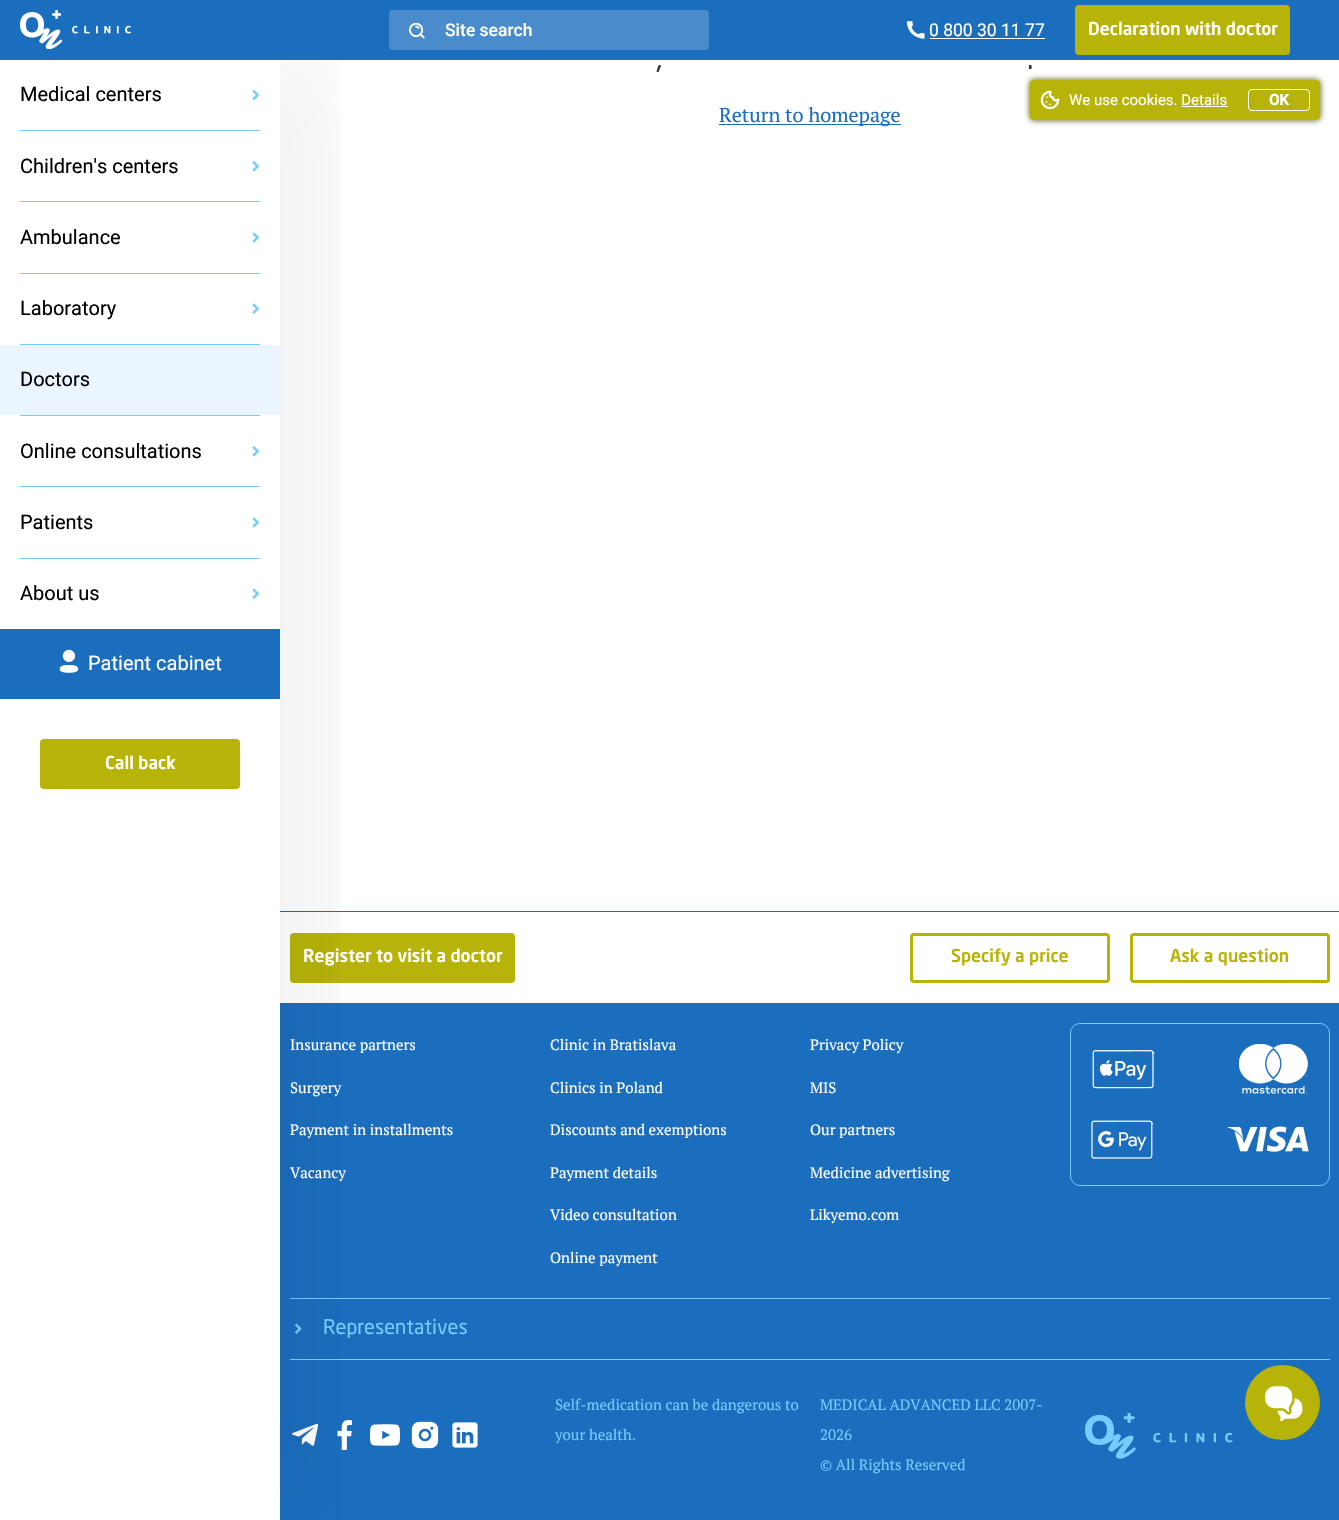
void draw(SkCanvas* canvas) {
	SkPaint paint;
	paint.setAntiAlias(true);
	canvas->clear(0xffffffff);
	paint.setColor(0xff1b6ebe);
	canvas->drawRect(SkRect::MakeXYWH(280, 911, 1059, 1), paint);
	paint.setColor(0xffb7b308);
	canvas->drawRoundRect(SkRect::MakeXYWH(290, 933, 225, 50), 4, 4, paint);
	paint.setColor(0xff1b6ebe);
	canvas->drawRect(SkRect::MakeXYWH(280, 1003, 1059, 517), paint);
	paint.setColor(0xff73cdfe);
	canvas->drawRect(SkRect::MakeXYWH(290, 1298, 1040, 1), paint);
	canvas->drawRect(SkRect::MakeXYWH(290, 1359, 1040, 1), paint);
	canvas->drawImageRect(SkImages::DeferredFromEncodedData(SkData::MakeFromFileName("img14.png")), SkRect::MakeXYWH(294, 1323, 8, 11), SkSamplingOptions());
	canvas->drawImageRect(SkImages::DeferredFromEncodedData(SkData::MakeFromFileName("img15.png")), SkRect::MakeXYWH(291, 1423, 28, 23), SkSamplingOptions());
	canvas->drawImageRect(SkImages::DeferredFromEncodedData(SkData::MakeFromFileName("img16.png")), SkRect::MakeXYWH(337, 1420, 15, 30), SkSamplingOptions());
	canvas->drawImageRect(SkImages::DeferredFromEncodedData(SkData::MakeFromFileName("img17.png")), SkRect::MakeXYWH(370, 1424, 30, 22), SkSamplingOptions());
	canvas->drawImageRect(SkImages::DeferredFromEncodedData(SkData::MakeFromFileName("img18.png")), SkRect::MakeXYWH(411, 1421, 28, 28), SkSamplingOptions());
	canvas->drawImageRect(SkImages::DeferredFromEncodedData(SkData::MakeFromFileName("img19.png")), SkRect::MakeXYWH(452, 1422, 26, 26), SkSamplingOptions());
	canvas->save();
	canvas->clipRect(SkRect::MakeXYWH(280, 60, 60, 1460));
	paint.setColor(0x0d000000);
	paint.setMaskFilter(SkMaskFilter::MakeBlur(kNormal_SkBlurStyle, 44));
	canvas->drawRect(SkRect::MakeXYWH(49, 60, 280, 1460), paint);
	paint.setMaskFilter(nullptr);
	canvas->restore();
	paint.setColor(0xff1b6ebe);
	canvas->drawRect(SkRect::MakeXYWH(0, 0, 1339, 60), paint);
	canvas->drawImageRect(SkImages::DeferredFromEncodedData(SkData::MakeFromFileName("img1.png")), SkRect::MakeXYWH(20, 10, 111, 39), SkSamplingOptions());
	paint.setColor(0xff498bcb);
	canvas->drawRoundRect(SkRect::MakeXYWH(389, 10, 320, 40), 4, 4, paint);
	canvas->drawImageRect(SkImages::DeferredFromEncodedData(SkData::MakeFromFileName("img2.png")), SkRect::MakeXYWH(409, 23, 16, 16), SkSamplingOptions());
	SkFont f1(fontMgr->matchFamilyStyle("Roboto", SkFontStyle(500, SkFontStyle::kNormal_Width, SkFontStyle::kUpright_Slant)), 17.5);
	f1.setSubpixel(true);
	paint.setColor(0xffffffff);
	canvas->drawString("Site search", 445, 36, f1, paint);
	canvas->drawImageRect(SkImages::DeferredFromEncodedData(SkData::MakeFromFileName("img3.png")), SkRect::MakeXYWH(906, 21, 19, 18), SkSamplingOptions());
	SkFont f2(fontMgr->matchFamilyStyle("Roboto", SkFontStyle::Normal()), 17.5);
	f2.setSubpixel(true);
	canvas->drawString("0 800 30 11 77", 929, 36, f2, paint);
	canvas->drawRect(SkRect::MakeXYWH(930, 38, 115, 1), paint);
	paint.setColor(0xffb7b308);
	canvas->drawRoundRect(SkRect::MakeXYWH(1075, 5, 215, 50), 4, 4, paint);
	SkFont f3(fontMgr->matchFamilyStyle("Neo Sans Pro", SkFontStyle(500, SkFontStyle::kNormal_Width, SkFontStyle::kUpright_Slant)), 17.5);
	f3.setSubpixel(true);
	paint.setColor(0xffffffff);
	canvas->drawString("Declaration with doctor", 1088, 35, f3, paint);
	SkFont f4(fontMgr->matchFamilyStyle("Roboto", SkFontStyle::Normal()), 20);
	f4.setSubpixel(true);
	paint.setColor(0xff000000);
	canvas->drawString("Medical centers", 20, 101, f4, paint);
	canvas->drawImageRect(SkImages::DeferredFromEncodedData(SkData::MakeFromFileName("img4.png")), SkRect::MakeXYWH(252, 89, 7, 12), SkSamplingOptions());
	paint.setColor(0xff73cdfe);
	canvas->drawRect(SkRect::MakeXYWH(20, 130, 240, 1), paint);
	paint.setColor(0xff000000);
	canvas->drawString("Children's centers", 20, 173, f4, paint);
	canvas->drawImageRect(SkImages::DeferredFromEncodedData(SkData::MakeFromFileName("img5.png")), SkRect::MakeXYWH(252, 161, 7, 11), SkSamplingOptions());
	paint.setColor(0xff73cdfe);
	canvas->drawRect(SkRect::MakeXYWH(20, 201, 240, 1), paint);
	paint.setColor(0xff000000);
	canvas->drawString("Ambulance", 20, 244, f4, paint);
	canvas->drawImageRect(SkImages::DeferredFromEncodedData(SkData::MakeFromFileName("img6.png")), SkRect::MakeXYWH(252, 232, 7, 11), SkSamplingOptions());
	paint.setColor(0xff73cdfe);
	canvas->drawRect(SkRect::MakeXYWH(20, 273, 240, 1), paint);
	paint.setColor(0xff000000);
	canvas->drawString("Laboratory", 20, 315, f4, paint);
	canvas->drawImageRect(SkImages::DeferredFromEncodedData(SkData::MakeFromFileName("img7.png")), SkRect::MakeXYWH(252, 303, 7, 11), SkSamplingOptions());
	paint.setColor(0xff73cdfe);
	canvas->drawRect(SkRect::MakeXYWH(20, 344, 240, 1), paint);
	paint.setColor(0xffeaf5ff);
	canvas->drawRect(SkRect::MakeXYWH(0, 345, 280, 70), paint);
	paint.setColor(0xff000000);
	canvas->drawString("Doctors", 20, 386, f4, paint);
	paint.setColor(0xff73cdfe);
	canvas->drawRect(SkRect::MakeXYWH(20, 415, 240, 1), paint);
	paint.setColor(0xff000000);
	canvas->drawString("Online consultations", 20, 458, f4, paint);
	canvas->drawImageRect(SkImages::DeferredFromEncodedData(SkData::MakeFromFileName("img5.png")), SkRect::MakeXYWH(252, 446, 7, 11), SkSamplingOptions());
	paint.setColor(0xff73cdfe);
	canvas->drawRect(SkRect::MakeXYWH(20, 486, 240, 1), paint);
	paint.setColor(0xff000000);
	canvas->drawString("Patients", 20, 529, f4, paint);
	canvas->drawImageRect(SkImages::DeferredFromEncodedData(SkData::MakeFromFileName("img6.png")), SkRect::MakeXYWH(252, 517, 7, 11), SkSamplingOptions());
	paint.setColor(0xff73cdfe);
	canvas->drawRect(SkRect::MakeXYWH(20, 558, 240, 1), paint);
	paint.setColor(0xff000000);
	canvas->drawString("About us", 20, 600, f4, paint);
	canvas->drawImageRect(SkImages::DeferredFromEncodedData(SkData::MakeFromFileName("img7.png")), SkRect::MakeXYWH(252, 588, 7, 11), SkSamplingOptions());
	paint.setColor(0xff1b6ebe);
	canvas->drawRect(SkRect::MakeXYWH(0, 629, 280, 70), paint);
	canvas->drawImageRect(SkImages::DeferredFromEncodedData(SkData::MakeFromFileName("img8.png")), SkRect::MakeXYWH(59, 649, 20, 24), SkSamplingOptions());
	paint.setColor(0xffffffff);
	canvas->drawString("Patient cabinet", 88, 670, f4, paint);
	paint.setColor(0xffb7b308);
	canvas->drawRoundRect(SkRect::MakeXYWH(40, 739, 200, 50), 4, 4, paint);
	paint.setColor(0xffffffff);
	canvas->drawString("Call back", 105, 769, f3, paint);
	SkFont f5(fontMgr->matchFamilyStyle("Neo Sans Pro", SkFontStyle::Normal()), 30);
	f5.setSubpixel(true);
	paint.setColor(0xff333333);
	canvas->drawString(",", 656, 69, f5, paint);
	canvas->drawString(".", 1027, 69, f5, paint);
	paint.setColor(0xff1b6ebe);
	canvas->drawRect(SkRect::MakeXYWH(719, 124, 182, 1), paint);
	SkFont f6(fontMgr->matchFamilyStyle("PT Serif", SkFontStyle::Normal()), 20);
	f6.setSubpixel(true);
	canvas->drawString("Return to homepage", 719, 122, f6, paint);
	paint.setColor(0xff504e00);
	paint.setMaskFilter(SkMaskFilter::MakeBlur(kNormal_SkBlurStyle, 3));
	canvas->drawRoundRect(SkRect::MakeXYWH(1030, 80, 290, 40), 4, 4, paint);
	paint.setMaskFilter(nullptr);
	paint.setColor(0xffb7b308);
	canvas->drawRoundRect(SkRect::MakeXYWH(1030, 80, 290, 40), 4, 4, paint);
	canvas->drawImageRect(SkImages::DeferredFromEncodedData(SkData::MakeFromFileName("img9.png")), SkRect::MakeXYWH(1040, 90, 20, 20), SkSamplingOptions());
	SkFont f7(fontMgr->matchFamilyStyle("Roboto", SkFontStyle::Normal()), 15);
	f7.setSubpixel(true);
	paint.setColor(0xffffffff);
	canvas->drawString("We use cookies. Details", 1069, 105, f7, paint);
	canvas->drawRect(SkRect::MakeXYWH(1181, 106, 47, 1), paint);
	paint.setStroke(true);
	paint.setStrokeWidth(1);
	canvas->drawRoundRect(SkRect::MakeXYWH(1248.5, 89.5, 61, 21), 3.5, 3.5, paint);
	SkFont f8(fontMgr->matchFamilyStyle("Roboto", SkFontStyle::Bold()), 15);
	f8.setSubpixel(true);
	paint.setStroke(false);
	canvas->drawString("OK", 1269, 105, f8, paint);
	canvas->drawString("Register to visit a doctor", 303, 962, f3, paint);
	paint.setStroke(true);
	paint.setStrokeWidth(3);
	paint.setColor(0xffb7b308);
	canvas->drawRoundRect(SkRect::MakeXYWH(911.5, 934.5, 197, 47), 2.5, 2.5, paint);
	paint.setStroke(false);
	canvas->drawString("Specify a price", 951, 962, f3, paint);
	paint.setStroke(true);
	canvas->drawRoundRect(SkRect::MakeXYWH(1131.5, 934.5, 197, 47), 2.5, 2.5, paint);
	paint.setStroke(false);
	canvas->drawString("Ask a question", 1170, 962, f3, paint);
	SkFont f9(fontMgr->matchFamilyStyle("PT Serif", SkFontStyle::Normal()), 15);
	f9.setSubpixel(true);
	paint.setColor(0xffffffff);
	canvas->drawString("Insurance partners", 290, 1050, f9, paint);
	canvas->drawString("Surgery", 290, 1093, f9, paint);
	canvas->drawString("Payment in installments", 290, 1135, f9, paint);
	canvas->drawString("Vacancy", 290, 1178, f9, paint);
	canvas->drawString("Clinic in Bratislava", 550, 1050, f9, paint);
	canvas->drawString("Clinics in Poland", 550, 1093, f9, paint);
	canvas->drawString("Discounts and exemptions", 550, 1135, f9, paint);
	canvas->drawString("Payment details", 550, 1178, f9, paint);
	canvas->drawString("Video consultation", 550, 1220, f9, paint);
	canvas->drawString("Online payment", 550, 1263, f9, paint);
	canvas->drawString("Privacy Policy", 810, 1050, f9, paint);
	canvas->drawString("MIS", 810, 1093, f9, paint);
	canvas->drawString("Our partners", 810, 1135, f9, paint);
	canvas->drawString("Medicine advertising", 810, 1178, f9, paint);
	canvas->drawString("Likyemo.com", 810, 1220, f9, paint);
	paint.setStroke(true);
	paint.setStrokeWidth(1);
	paint.setColor(0xff73cdfe);
	canvas->drawRoundRect(SkRect::MakeXYWH(1070.5, 1023.5, 259, 162), 9.5, 9.5, paint);
	canvas->drawImageRect(SkImages::DeferredFromEncodedData(SkData::MakeFromFileName("img10.png")), SkRect::MakeXYWH(1092, 1050, 63, 39), SkSamplingOptions());
	canvas->drawImageRect(SkImages::DeferredFromEncodedData(SkData::MakeFromFileName("img11.png")), SkRect::MakeXYWH(1239, 1044, 69, 50), SkSamplingOptions());
	canvas->drawImageRect(SkImages::DeferredFromEncodedData(SkData::MakeFromFileName("img12.png")), SkRect::MakeXYWH(1091, 1120, 62, 39), SkSamplingOptions());
	canvas->drawImageRect(SkImages::DeferredFromEncodedData(SkData::MakeFromFileName("img13.png")), SkRect::MakeXYWH(1228, 1126, 81, 26), SkSamplingOptions());
	SkFont f10(fontMgr->matchFamilyStyle("Neo Sans Pro", SkFontStyle::Normal()), 20);
	f10.setSubpixel(true);
	paint.setStroke(false);
	canvas->drawString("Representatives", 323, 1334, f10, paint);
	canvas->drawString("Self-medication can be dangerous to", 555, 1410, f9, paint);
	canvas->drawString("your health.", 555, 1440, f9, paint);
	canvas->drawString("MEDICAL ADVANCED LLC 2007-", 820, 1410, f9, paint);
	canvas->drawString("2026", 820, 1440, f9, paint);
	canvas->drawString("© All Rights Reserved", 820, 1470, f9, paint);
	canvas->drawImageRect(SkImages::DeferredFromEncodedData(SkData::MakeFromFileName("img20.png")), SkRect::MakeXYWH(1085, 1413, 148, 46), SkSamplingOptions());
	paint.setColor(0xffb7b308);
	canvas->drawCircle(1282.5, 1402.5, 37.5, paint);
	canvas->drawImageRect(SkImages::DeferredFromEncodedData(SkData::MakeFromFileName("img21.png")), SkRect::MakeXYWH(1265, 1386, 38, 35), SkSamplingOptions());
}
